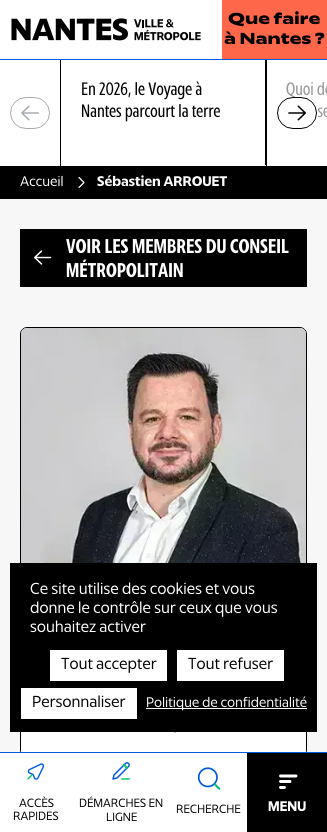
void draw(SkCanvas* canvas) {
	SkPaint paint;
	paint.setAntiAlias(true);
	auto svgPath = [&](const char* data, bool evenOdd = false) {
		SkPath result = *SkParsePath::FromSVGString(data);
		if (evenOdd) result.setFillType(SkPathFillType::kEvenOdd);
		return result;
	};
	canvas->clear(0xffffffff);
	paint.setColor(0xff005ae1);
	canvas->drawRect(SkRect::MakeXYWH(0, 59, 327, 1), paint);
	paint.setColor(0xffff674a);
	canvas->drawRect(SkRect::MakeXYWH(222, 0, 105, 59), paint);
	canvas->drawImageRect(SkImages::DeferredFromEncodedData(SkData::MakeFromFileName("img1.png")), SkRect::MakeXYWH(228, 11, 92, 16), SkSamplingOptions());
	canvas->drawImageRect(SkImages::DeferredFromEncodedData(SkData::MakeFromFileName("img2.png")), SkRect::MakeXYWH(224, 31, 101, 14), SkSamplingOptions());
	paint.setColor(0xfff7f7f7);
	canvas->drawRect(SkRect::MakeXYWH(0, 199, 327, 553), paint);
	paint.setStroke(true);
	paint.setStrokeWidth(1);
	paint.setColor(0xff000000);
	canvas->drawRoundRect(SkRect::MakeXYWH(20.5, 327.5, 286, 429), 6.5, 6.5, paint);
	paint.setStroke(false);
	paint.setColor(0xffffffff);
	canvas->drawPath(svgPath("M21 568H306V750C306 753.5 303.5 756 300 756H27C23.5 756 21 753.5 21 750Z"), paint);
	canvas->drawRect(SkRect::MakeXYWH(20, 753, 227, 4), paint);
	paint.setColor(0xff005ae1);
	canvas->drawRect(SkRect::MakeXYWH(0, 752, 327, 1), paint);
	canvas->drawImageRect(SkImages::DeferredFromEncodedData(SkData::MakeFromFileName("img3.png")), SkRect::MakeXYWH(27, 763, 18, 17), SkSamplingOptions());
	canvas->drawImageRect(SkImages::DeferredFromEncodedData(SkData::MakeFromFileName("img4.png")), SkRect::MakeXYWH(19, 796, 35, 12), SkSamplingOptions());
	canvas->drawImageRect(SkImages::DeferredFromEncodedData(SkData::MakeFromFileName("img5.png")), SkRect::MakeXYWH(13, 811, 46, 10), SkSamplingOptions());
	canvas->drawImageRect(SkImages::DeferredFromEncodedData(SkData::MakeFromFileName("img6.png")), SkRect::MakeXYWH(112, 762, 19, 18), SkSamplingOptions());
	canvas->drawImageRect(SkImages::DeferredFromEncodedData(SkData::MakeFromFileName("img7.png")), SkRect::MakeXYWH(79, 796, 84, 12), SkSamplingOptions());
	canvas->drawImageRect(SkImages::DeferredFromEncodedData(SkData::MakeFromFileName("img8.png")), SkRect::MakeXYWH(106, 812, 31, 10), SkSamplingOptions());
	canvas->drawImageRect(SkImages::DeferredFromEncodedData(SkData::MakeFromFileName("img9.png")), SkRect::MakeXYWH(197, 767, 24, 23), SkSamplingOptions());
	canvas->drawImageRect(SkImages::DeferredFromEncodedData(SkData::MakeFromFileName("img10.png")), SkRect::MakeXYWH(176, 804, 65, 10), SkSamplingOptions());
	paint.setColor(0xff000000);
	canvas->drawRect(SkRect::MakeXYWH(247, 753, 80, 79), paint);
	paint.setStroke(true);
	paint.setStrokeWidth(2.9);
	paint.setStrokeCap(SkPaint::kRound_Cap);
	paint.setStrokeJoin(SkPaint::kRound_Join);
	paint.setColor(0xffffffff);
	canvas->drawPath(svgPath("M280.5 776H296M280.5 781.5H290M280.5 787.5H284.5"), paint);
	canvas->drawImageRect(SkImages::DeferredFromEncodedData(SkData::MakeFromFileName("img11.png")), SkRect::MakeXYWH(268, 801, 38, 11), SkSamplingOptions());
	canvas->drawImageRect(SkImages::DeferredFromEncodedData(SkData::MakeFromFileName("img12.png")), SkRect::MakeXYWH(11, 18, 190, 23), SkSamplingOptions());
	paint.setStroke(false);
	paint.setColor(0xff000000);
	canvas->drawRect(SkRect::MakeXYWH(60, 60, 1, 106), paint);
	paint.setStroke(true);
	paint.setStrokeWidth(1);
	paint.setStrokeCap(SkPaint::kButt_Cap);
	paint.setStrokeJoin(SkPaint::kMiter_Join);
	paint.setColor(0xffa7acb2);
	canvas->drawRoundRect(SkRect::MakeXYWH(10.5, 97.5, 39, 31), 15.5, 15.5, paint);
	canvas->drawImageRect(SkImages::DeferredFromEncodedData(SkData::MakeFromFileName("img13.png")), SkRect::MakeXYWH(21, 105, 18, 16), SkSamplingOptions());
	paint.setStroke(false);
	paint.setColor(0xff000000);
	canvas->drawRect(SkRect::MakeXYWH(266, 60, 1, 106), paint);
	paint.setStroke(true);
	canvas->drawRoundRect(SkRect::MakeXYWH(277.5, 97.5, 39, 31), 15.5, 15.5, paint);
	canvas->drawImageRect(SkImages::DeferredFromEncodedData(SkData::MakeFromFileName("img14.png")), SkRect::MakeXYWH(288, 105, 18, 16), SkSamplingOptions());
	paint.setStroke(false);
	canvas->drawRect(SkRect::MakeXYWH(265, 60, 1, 105), paint);
	canvas->drawImageRect(SkImages::DeferredFromEncodedData(SkData::MakeFromFileName("img15.png")), SkRect::MakeXYWH(82, 81, 120, 19), SkSamplingOptions());
	canvas->drawImageRect(SkImages::DeferredFromEncodedData(SkData::MakeFromFileName("img16.png")), SkRect::MakeXYWH(82, 104, 138, 18), SkSamplingOptions());
	canvas->drawImageRect(SkImages::DeferredFromEncodedData(SkData::MakeFromFileName("img17.png")), SkRect::MakeXYWH(286, 82, 41, 15), SkSamplingOptions());
	canvas->drawImageRect(SkImages::DeferredFromEncodedData(SkData::MakeFromFileName("img18.png")), SkRect::MakeXYWH(317, 107, 10, 11), SkSamplingOptions());
	canvas->drawRect(SkRect::MakeXYWH(0, 166, 327, 33), paint);
	canvas->drawImageRect(SkImages::DeferredFromEncodedData(SkData::MakeFromFileName("img19.png")), SkRect::MakeXYWH(20, 175, 43, 12), SkSamplingOptions());
	paint.setStroke(true);
	paint.setStrokeWidth(1.1);
	paint.setStrokeCap(SkPaint::kRound_Cap);
	paint.setStrokeJoin(SkPaint::kRound_Join);
	paint.setColor(0xffffffff);
	canvas->drawPath(svgPath("M79 177.5L84 182.5L79 187.5"), paint);
	canvas->drawImageRect(SkImages::DeferredFromEncodedData(SkData::MakeFromFileName("img20.png")), SkRect::MakeXYWH(97, 175, 130, 12), SkSamplingOptions());
	paint.setStroke(false);
	paint.setColor(0xff000000);
	canvas->drawRect(SkRect::MakeXYWH(20, 229, 287, 58), paint);
	canvas->drawImageRect(SkImages::DeferredFromEncodedData(SkData::MakeFromFileName("img21.png")), SkRect::MakeXYWH(66, 238, 223, 16), SkSamplingOptions());
	canvas->drawImageRect(SkImages::DeferredFromEncodedData(SkData::MakeFromFileName("img22.png")), SkRect::MakeXYWH(34, 250, 18, 15), SkSamplingOptions());
	canvas->drawImageRect(SkImages::DeferredFromEncodedData(SkData::MakeFromFileName("img23.png")), SkRect::MakeXYWH(66, 259, 117, 19), SkSamplingOptions());
	canvas->drawImageRect(SkImages::DeferredFromEncodedData(SkData::MakeFromFileName("img24.png")), SkRect::MakeXYWH(21, 328, 285, 235), SkSamplingOptions());
	canvas->drawImageRect(SkImages::DeferredFromEncodedData(SkData::MakeFromFileName("img25.png")), SkRect::MakeXYWH(174, 732, 2, 1), SkSamplingOptions());
	canvas->drawRect(SkRect::MakeXYWH(10, 563, 307, 169), paint);
	canvas->drawImageRect(SkImages::DeferredFromEncodedData(SkData::MakeFromFileName("img26.png")), SkRect::MakeXYWH(30, 582, 225, 13), SkSamplingOptions());
	canvas->drawImageRect(SkImages::DeferredFromEncodedData(SkData::MakeFromFileName("img27.png")), SkRect::MakeXYWH(30, 601, 247, 16), SkSamplingOptions());
	canvas->drawImageRect(SkImages::DeferredFromEncodedData(SkData::MakeFromFileName("img28.png")), SkRect::MakeXYWH(30, 620, 116, 13), SkSamplingOptions());
	paint.setColor(0xffffffff);
	canvas->drawRect(SkRect::MakeXYWH(50, 650, 117, 31), paint);
	canvas->drawImageRect(SkImages::DeferredFromEncodedData(SkData::MakeFromFileName("img29.png")), SkRect::MakeXYWH(61, 657, 96, 16), SkSamplingOptions());
	canvas->drawRect(SkRect::MakeXYWH(177, 650, 107, 31), paint);
	canvas->drawImageRect(SkImages::DeferredFromEncodedData(SkData::MakeFromFileName("img30.png")), SkRect::MakeXYWH(188, 657, 85, 13), SkSamplingOptions());
	canvas->drawRect(SkRect::MakeXYWH(21, 688, 116, 31), paint);
	canvas->drawImageRect(SkImages::DeferredFromEncodedData(SkData::MakeFromFileName("img31.png")), SkRect::MakeXYWH(33, 695, 93, 13), SkSamplingOptions());
	canvas->drawRect(SkRect::MakeXYWH(146, 708, 161, 1), paint);
	canvas->drawImageRect(SkImages::DeferredFromEncodedData(SkData::MakeFromFileName("img32.png")), SkRect::MakeXYWH(147, 696, 160, 15), SkSamplingOptions());
}
